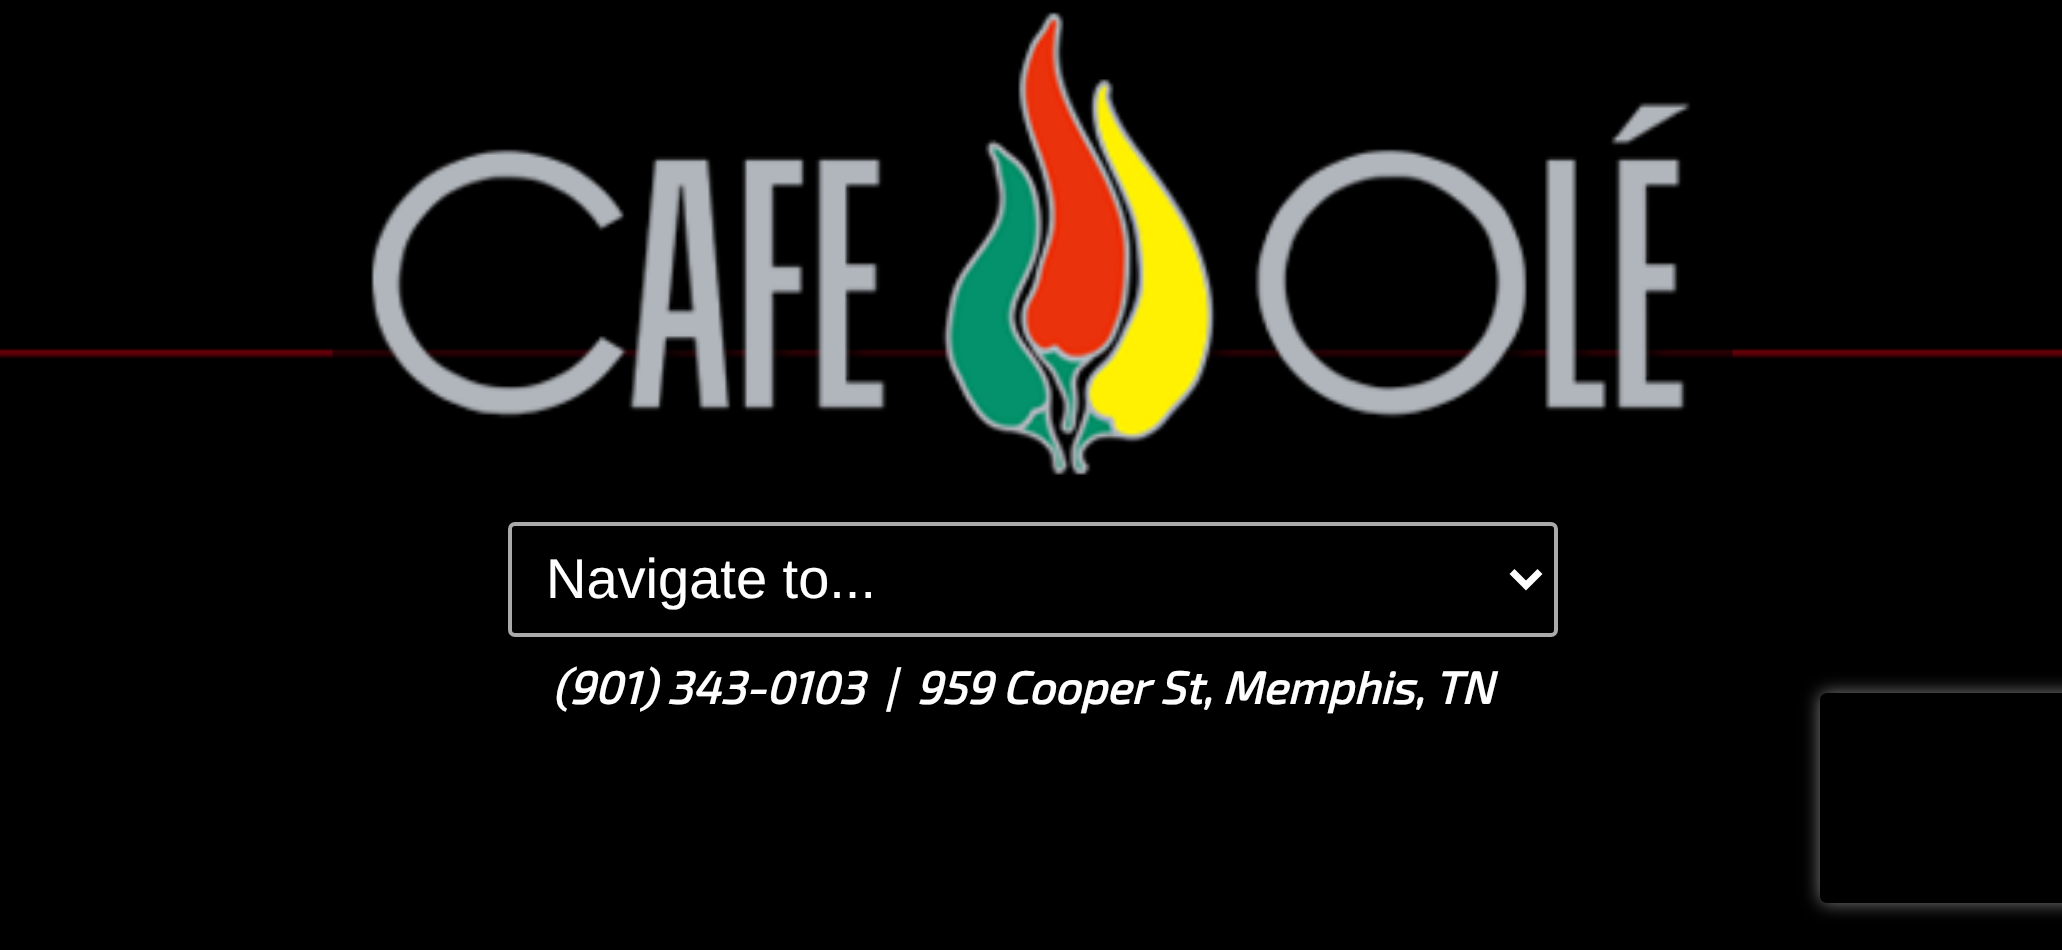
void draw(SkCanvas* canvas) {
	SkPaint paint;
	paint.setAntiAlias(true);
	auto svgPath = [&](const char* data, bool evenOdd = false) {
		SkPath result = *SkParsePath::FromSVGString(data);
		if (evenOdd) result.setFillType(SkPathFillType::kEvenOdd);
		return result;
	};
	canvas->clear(0xff000000);
	canvas->drawImageRect(SkImages::DeferredFromEncodedData(SkData::MakeFromFileName("img1.png")), SkRect::MakeXYWH(0, 348, 2062, 11), SkSamplingOptions());
	canvas->drawImageRect(SkImages::DeferredFromEncodedData(SkData::MakeFromFileName("img2.png")), SkRect::MakeXYWH(332, 12, 1401, 463), SkSamplingOptions());
	paint.setStroke(true);
	paint.setStrokeWidth(4);
	paint.setColor(0xffaaaaaa);
	canvas->drawRoundRect(SkRect::MakeXYWH(510, 524, 1046, 111), 5, 5, paint);
	paint.setStrokeWidth(7);
	paint.setColor(0xffffffff);
	canvas->drawPath(svgPath("M1512 571.5L1526 585.5L1540 571.5"), paint);
	SkFont f1(fontMgr->matchFamilyStyle("Liberation Sans", SkFontStyle::Normal()), 56);
	f1.setSubpixel(true);
	paint.setStroke(false);
	canvas->drawString("Navigate to...", 546, 598, f1, paint);
	SkFont f2(fontMgr->matchFamilyStyle("Exo 2", SkFontStyle::BoldItalic()), 45.5);
	f2.setSubpixel(true);
	canvas->drawString("(901) 343-0103", 552, 704, f2, paint);
	canvas->drawString("|  959 Cooper St, Memphis, TN", 884, 704, f2, paint);
	canvas->save();
	canvas->clipPath(svgPath("M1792 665H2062V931H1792ZM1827 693H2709C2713 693 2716 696 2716 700V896C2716 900 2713 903 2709 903H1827C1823 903 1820 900 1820 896V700C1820 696 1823 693 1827 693Z", true), true);
	paint.setColor(0xff808080);
	paint.setMaskFilter(SkMaskFilter::MakeBlur(kNormal_SkBlurStyle, 9));
	canvas->drawRoundRect(SkRect::MakeXYWH(1820, 693, 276, 210), 7, 7, paint);
	paint.setMaskFilter(nullptr);
	canvas->restore();
}
